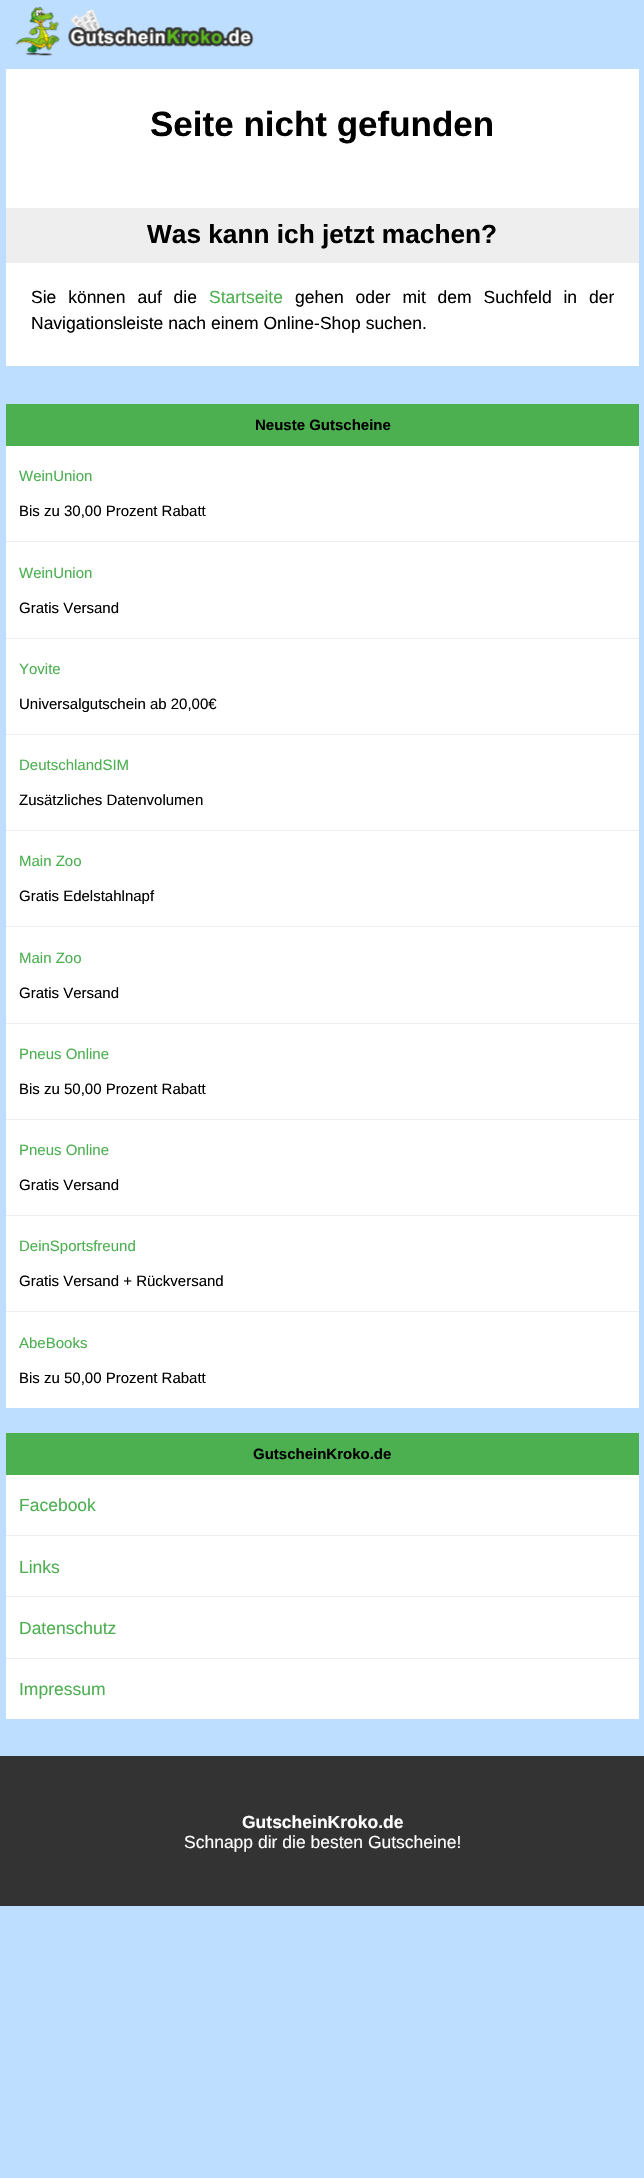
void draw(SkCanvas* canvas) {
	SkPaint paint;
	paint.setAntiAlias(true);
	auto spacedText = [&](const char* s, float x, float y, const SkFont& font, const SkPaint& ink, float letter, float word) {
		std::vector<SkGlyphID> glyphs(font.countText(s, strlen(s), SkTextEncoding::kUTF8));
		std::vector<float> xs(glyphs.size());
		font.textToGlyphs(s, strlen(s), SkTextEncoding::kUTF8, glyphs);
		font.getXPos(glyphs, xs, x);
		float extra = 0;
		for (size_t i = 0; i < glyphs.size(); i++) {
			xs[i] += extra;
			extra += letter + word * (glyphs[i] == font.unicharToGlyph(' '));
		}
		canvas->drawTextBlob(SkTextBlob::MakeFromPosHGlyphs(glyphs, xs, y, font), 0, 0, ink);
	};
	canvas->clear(0xffbedeff);
	canvas->drawImageRect(SkImages::DeferredFromEncodedData(SkData::MakeFromFileName("img1.png")), SkRect::MakeXYWH(15, 7, 239, 49), SkSamplingOptions());
	paint.setColor(0xffffffff);
	canvas->drawRect(SkRect::MakeXYWH(6, 69, 633, 297), paint);
	SkFont f1(fontMgr->matchFamilyStyle("Liberation Sans", SkFontStyle::Bold()), 35);
	f1.setSubpixel(true);
	paint.setColor(0xff000000);
	canvas->drawString("Seite nicht gefunden", 150, 136, f1, paint);
	paint.setColor(0xffeeeeee);
	canvas->drawRect(SkRect::MakeXYWH(6, 208, 633, 55), paint);
	SkFont f2(fontMgr->matchFamilyStyle("Liberation Sans", SkFontStyle::Bold()), 26.25);
	f2.setSubpixel(true);
	paint.setColor(0xff000000);
	canvas->drawString("Was kann ich jetzt machen?", 147, 243, f2, paint);
	SkFont f3(fontMgr->matchFamilyStyle("Liberation Sans", SkFontStyle::Normal()), 17.5);
	f3.setSubpixel(true);
	spacedText("Sie können auf die", 31, 303, f3, paint, 0, 7);
	paint.setColor(0xff4caf50);
	canvas->drawString("Startseite", 209, 303, f3, paint);
	paint.setColor(0xff000000);
	spacedText("gehen oder mit dem Suchfeld in der", 295, 303, f3, paint, 0, 7);
	canvas->drawString("Navigationsleiste nach einem Online-Shop suchen.", 31, 329, f3, paint);
	paint.setColor(0xffffffff);
	canvas->drawRect(SkRect::MakeXYWH(6, 446, 633, 962), paint);
	paint.setColor(0xff4caf50);
	canvas->drawRect(SkRect::MakeXYWH(6, 404, 633, 42), paint);
	SkFont f4(fontMgr->matchFamilyStyle("Liberation Sans", SkFontStyle::Bold()), 15);
	f4.setSubpixel(true);
	paint.setColor(0xff000000);
	canvas->drawString("Neuste Gutscheine", 255, 430, f4, paint);
	paint.setColor(0xffeeeeee);
	canvas->drawRect(SkRect::MakeXYWH(6, 541, 633, 1), paint);
	SkFont f5(fontMgr->matchFamilyStyle("Liberation Sans", SkFontStyle::Normal()), 15);
	f5.setSubpixel(true);
	paint.setColor(0xff4caf50);
	canvas->drawString("WeinUnion", 19, 481, f5, paint);
	paint.setColor(0xff000000);
	canvas->drawString("Bis zu 30,00 Prozent Rabatt", 19, 516, f5, paint);
	paint.setColor(0xffeeeeee);
	canvas->drawRect(SkRect::MakeXYWH(6, 638, 633, 1), paint);
	paint.setColor(0xff4caf50);
	canvas->drawString("WeinUnion", 19, 578, f5, paint);
	paint.setColor(0xff000000);
	canvas->drawString("Gratis Versand", 19, 613, f5, paint);
	paint.setColor(0xffeeeeee);
	canvas->drawRect(SkRect::MakeXYWH(6, 734, 633, 1), paint);
	paint.setColor(0xff4caf50);
	canvas->drawString("Yovite", 19, 674, f5, paint);
	paint.setColor(0xff000000);
	canvas->drawString("Universalgutschein ab 20,00€", 19, 709, f5, paint);
	paint.setColor(0xffeeeeee);
	canvas->drawRect(SkRect::MakeXYWH(6, 830, 633, 1), paint);
	paint.setColor(0xff4caf50);
	canvas->drawString("DeutschlandSIM", 19, 770, f5, paint);
	paint.setColor(0xff000000);
	canvas->drawString("Zusätzliches Datenvolumen", 19, 805, f5, paint);
	paint.setColor(0xffeeeeee);
	canvas->drawRect(SkRect::MakeXYWH(6, 926, 633, 1), paint);
	paint.setColor(0xff4caf50);
	canvas->drawString("Main Zoo", 19, 866, f5, paint);
	paint.setColor(0xff000000);
	canvas->drawString("Gratis Edelstahlnapf", 19, 901, f5, paint);
	paint.setColor(0xffeeeeee);
	canvas->drawRect(SkRect::MakeXYWH(6, 1023, 633, 1), paint);
	paint.setColor(0xff4caf50);
	canvas->drawString("Main Zoo", 19, 963, f5, paint);
	paint.setColor(0xff000000);
	canvas->drawString("Gratis Versand", 19, 998, f5, paint);
	paint.setColor(0xffeeeeee);
	canvas->drawRect(SkRect::MakeXYWH(6, 1119, 633, 1), paint);
	paint.setColor(0xff4caf50);
	canvas->drawString("Pneus Online", 19, 1059, f5, paint);
	paint.setColor(0xff000000);
	canvas->drawString("Bis zu 50,00 Prozent Rabatt", 19, 1094, f5, paint);
	paint.setColor(0xffeeeeee);
	canvas->drawRect(SkRect::MakeXYWH(6, 1215, 633, 1), paint);
	paint.setColor(0xff4caf50);
	canvas->drawString("Pneus Online", 19, 1155, f5, paint);
	paint.setColor(0xff000000);
	canvas->drawString("Gratis Versand", 19, 1190, f5, paint);
	paint.setColor(0xffeeeeee);
	canvas->drawRect(SkRect::MakeXYWH(6, 1311, 633, 1), paint);
	paint.setColor(0xff4caf50);
	canvas->drawString("DeinSportsfreund", 19, 1251, f5, paint);
	paint.setColor(0xff000000);
	canvas->drawString("Gratis Versand + Rückversand", 19, 1286, f5, paint);
	paint.setColor(0xff4caf50);
	canvas->drawString("AbeBooks", 19, 1348, f5, paint);
	paint.setColor(0xff000000);
	canvas->drawString("Bis zu 50,00 Prozent Rabatt", 19, 1383, f5, paint);
	paint.setColor(0xffffffff);
	canvas->drawRect(SkRect::MakeXYWH(6, 1475, 633, 244), paint);
	paint.setColor(0xff4caf50);
	canvas->drawRect(SkRect::MakeXYWH(6, 1433, 633, 42), paint);
	paint.setColor(0xff000000);
	canvas->drawString("GutscheinKroko.de", 253, 1459, f4, paint);
	paint.setColor(0xffeeeeee);
	canvas->drawRect(SkRect::MakeXYWH(6, 1535, 633, 1), paint);
	paint.setColor(0xff4caf50);
	canvas->drawString("Facebook", 19, 1511, f3, paint);
	paint.setColor(0xffeeeeee);
	canvas->drawRect(SkRect::MakeXYWH(6, 1596, 633, 1), paint);
	paint.setColor(0xff4caf50);
	canvas->drawString("Links", 19, 1573, f3, paint);
	paint.setColor(0xffeeeeee);
	canvas->drawRect(SkRect::MakeXYWH(6, 1658, 633, 1), paint);
	paint.setColor(0xff4caf50);
	canvas->drawString("Datenschutz", 19, 1634, f3, paint);
	canvas->drawString("Impressum", 19, 1695, f3, paint);
	paint.setColor(0xff333333);
	canvas->drawRect(SkRect::MakeXYWH(0, 1756, 644, 150), paint);
	SkFont f6(fontMgr->matchFamilyStyle("Liberation Sans", SkFontStyle::Bold()), 17.5);
	f6.setSubpixel(true);
	paint.setColor(0xffffffff);
	canvas->drawString("GutscheinKroko.de", 242, 1828, f6, paint);
	canvas->drawString("Schnapp dir die besten Gutscheine!", 184, 1848, f3, paint);
}
